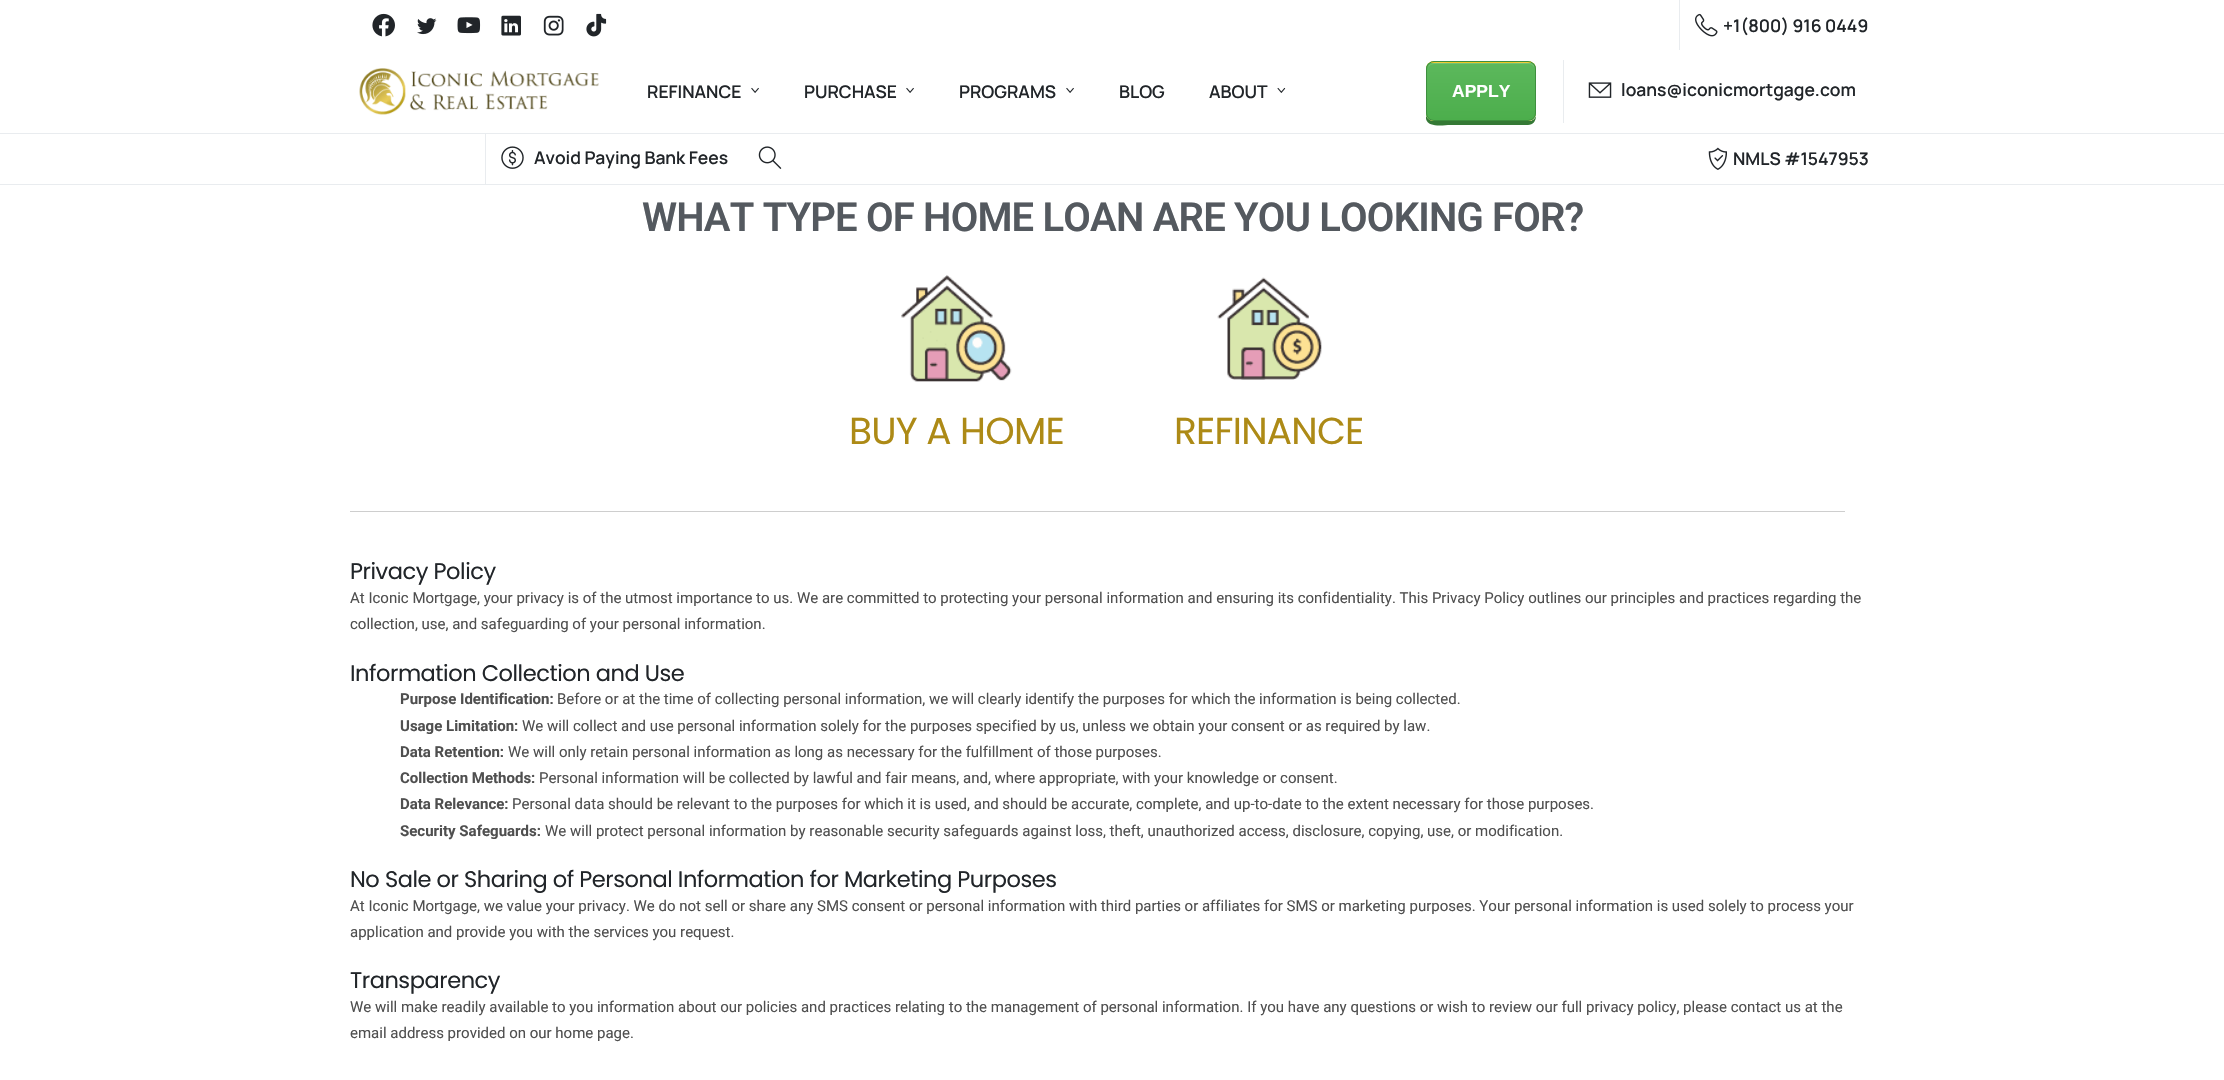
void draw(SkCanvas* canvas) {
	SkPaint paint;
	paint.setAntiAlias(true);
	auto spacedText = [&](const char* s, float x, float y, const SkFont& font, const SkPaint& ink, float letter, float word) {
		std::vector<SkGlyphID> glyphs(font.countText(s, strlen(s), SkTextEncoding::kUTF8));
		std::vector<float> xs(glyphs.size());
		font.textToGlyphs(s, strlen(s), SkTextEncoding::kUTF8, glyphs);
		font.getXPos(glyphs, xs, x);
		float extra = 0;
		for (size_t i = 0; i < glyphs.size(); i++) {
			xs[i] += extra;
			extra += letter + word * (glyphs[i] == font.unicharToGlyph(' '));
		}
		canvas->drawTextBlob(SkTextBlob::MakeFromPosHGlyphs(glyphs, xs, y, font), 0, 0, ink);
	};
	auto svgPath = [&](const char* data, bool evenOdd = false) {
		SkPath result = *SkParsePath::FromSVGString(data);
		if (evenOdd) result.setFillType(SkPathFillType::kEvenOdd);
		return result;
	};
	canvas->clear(0xffffffff);
	canvas->drawImageRect(SkImages::DeferredFromEncodedData(SkData::MakeFromFileName("img1.png")), SkRect::MakeXYWH(372, 13, 23, 24), SkSamplingOptions());
	canvas->drawImageRect(SkImages::DeferredFromEncodedData(SkData::MakeFromFileName("img2.png")), SkRect::MakeXYWH(417, 18, 20, 17), SkSamplingOptions());
	canvas->drawImageRect(SkImages::DeferredFromEncodedData(SkData::MakeFromFileName("img3.png")), SkRect::MakeXYWH(457, 17, 24, 17), SkSamplingOptions());
	canvas->drawImageRect(SkImages::DeferredFromEncodedData(SkData::MakeFromFileName("img4.png")), SkRect::MakeXYWH(501, 15, 20, 21), SkSamplingOptions());
	canvas->drawImageRect(SkImages::DeferredFromEncodedData(SkData::MakeFromFileName("img5.png")), SkRect::MakeXYWH(543, 15, 21, 21), SkSamplingOptions());
	canvas->drawImageRect(SkImages::DeferredFromEncodedData(SkData::MakeFromFileName("img6.png")), SkRect::MakeXYWH(586, 13, 21, 24), SkSamplingOptions());
	paint.setColor(0xffe9ecef);
	canvas->drawRect(SkRect::MakeXYWH(1679, 0, 1, 50), paint);
	canvas->drawImageRect(SkImages::DeferredFromEncodedData(SkData::MakeFromFileName("img7.png")), SkRect::MakeXYWH(1695, 13, 23, 24), SkSamplingOptions());
	SkFont f1(fontMgr->matchFamilyStyle("Manrope", SkFontStyle(600, SkFontStyle::kNormal_Width, SkFontStyle::kUpright_Slant)), 17.5);
	f1.setSubpixel(true);
	paint.setColor(0xff212529);
	canvas->drawString("+1(800) 916 0449", 1723, 32, f1, paint);
	canvas->drawImageRect(SkImages::DeferredFromEncodedData(SkData::MakeFromFileName("img8.png")), SkRect::MakeXYWH(359, 68, 240, 47), SkSamplingOptions());
	canvas->drawString("REFINANCE", 647, 98, f1, paint);
	canvas->drawImageRect(SkImages::DeferredFromEncodedData(SkData::MakeFromFileName("img9.png")), SkRect::MakeXYWH(751, 87, 8, 6), SkSamplingOptions());
	canvas->drawString("PURCHASE", 804, 98, f1, paint);
	canvas->drawImageRect(SkImages::DeferredFromEncodedData(SkData::MakeFromFileName("img9.png")), SkRect::MakeXYWH(906, 87, 8, 6), SkSamplingOptions());
	canvas->drawString("PROGRAMS", 959, 98, f1, paint);
	canvas->drawImageRect(SkImages::DeferredFromEncodedData(SkData::MakeFromFileName("img9.png")), SkRect::MakeXYWH(1066, 87, 8, 6), SkSamplingOptions());
	canvas->drawString("BLOG", 1119, 98, f1, paint);
	canvas->drawString("ABOUT", 1209, 98, f1, paint);
	canvas->drawImageRect(SkImages::DeferredFromEncodedData(SkData::MakeFromFileName("img10.png")), SkRect::MakeXYWH(1277, 87, 9, 6), SkSamplingOptions());
	paint.setColor(0xff357935);
	canvas->drawPath(svgPath("M1426 71V119C1428 128 1444 125 1450 125H1528C1533 125 1536 121 1536 116C1535 119 1532 121 1529 121H1434C1430 121 1426 118 1426 114Z"), paint);
	paint.setColor(0xffefc621);
	canvas->drawRoundRect(SkRect::MakeXYWH(1426, 61, 110, 60), 8, 8, paint);
	canvas->save();
	canvas->clipPath(svgPath("M1434 61H1528C1532.5 61 1536 64.5 1536 69V113C1536 117.5 1532.5 121 1528 121H1434C1429.5 121 1426 117.5 1426 113V69C1426 64.5 1429.5 61 1434 61Z"), true);
	{
		const SkColor colors[] = {0xff5cb85c, 0xff4cae4c};
		const float stops[] = {0, 1};
		const SkPoint ends[] = {{1481, 63}, {1481, 120}};
		paint.setShader(SkGradientShader::MakeLinear(ends, colors, stops, 2, SkTileMode::kClamp));
		paint.setAlpha(255);
	}
	canvas->drawRect(SkRect::MakeXYWH(1426, 63, 110, 57), paint);
	canvas->restore();
	paint.setShader(nullptr);
	paint.setColor(0x26ffffff);
	canvas->drawPath(svgPath("M1434 64H1529C1532 64 1535 67 1535 70C1535 59 1519 63 1513 63H1450C1444 63 1428 59 1428 70C1428 67 1430 64 1434 64Z"), paint);
	paint.setStroke(true);
	paint.setStrokeWidth(1);
	paint.setColor(0xff3e8f3e);
	canvas->drawRoundRect(SkRect::MakeXYWH(1426.5, 61.5, 109, 59), 7.5, 7.5, paint);
	SkFont f2(fontMgr->matchFamilyStyle("Liberation Sans", SkFontStyle::Bold()), 17.5);
	f2.setSubpixel(true);
	paint.setStroke(false);
	paint.setColor(0xffffffff);
	canvas->drawString("APPLY", 1452, 97, f2, paint);
	paint.setColor(0xffe9ecef);
	canvas->drawRect(SkRect::MakeXYWH(1563, 60, 1, 63), paint);
	canvas->drawImageRect(SkImages::DeferredFromEncodedData(SkData::MakeFromFileName("img11.png")), SkRect::MakeXYWH(1588, 82, 24, 16), SkSamplingOptions());
	paint.setColor(0xff212529);
	canvas->drawString("loans@iconicmortgage.com", 1621, 96, f1, paint);
	paint.setColor(0xffe9ecef);
	canvas->drawRect(SkRect::MakeXYWH(0, 133, 2224, 1), paint);
	canvas->drawRect(SkRect::MakeXYWH(485, 134, 1, 50), paint);
	canvas->drawImageRect(SkImages::DeferredFromEncodedData(SkData::MakeFromFileName("img12.png")), SkRect::MakeXYWH(501, 146, 23, 23), SkSamplingOptions());
	paint.setColor(0xff212529);
	canvas->drawString("Avoid Paying Bank Fees", 534, 164, f1, paint);
	canvas->drawImageRect(SkImages::DeferredFromEncodedData(SkData::MakeFromFileName("img13.png")), SkRect::MakeXYWH(758, 146, 24, 23), SkSamplingOptions());
	canvas->drawImageRect(SkImages::DeferredFromEncodedData(SkData::MakeFromFileName("img14.png")), SkRect::MakeXYWH(1708, 147, 19, 23), SkSamplingOptions());
	canvas->drawString("NMLS #1547953", 1733, 165, f1, paint);
	paint.setColor(0xffe9ecef);
	canvas->drawRect(SkRect::MakeXYWH(0, 184, 2224, 1), paint);
	SkFont f3(fontMgr->matchFamilyStyle("Roboto", SkFontStyle(600, SkFontStyle::kNormal_Width, SkFontStyle::kUpright_Slant)), 40);
	f3.setSubpixel(true);
	paint.setColor(0xff54595f);
	spacedText("WHAT TYPE OF HOME LOAN ARE YOU LOOKING FOR?", 642, 231, f3, paint, -0.8, 0);
	canvas->drawImageRect(SkImages::DeferredFromEncodedData(SkData::MakeFromFileName("img15.png")), SkRect::MakeXYWH(901, 275, 111, 107), SkSamplingOptions());
	SkFont f4(fontMgr->matchFamilyStyle("Poppins", SkFontStyle::Normal()), 37.5);
	f4.setSubpixel(true);
	paint.setColor(0xffad8a16);
	spacedText("BUY A HOME", 849, 444, f4, paint, -0.75, 0);
	canvas->drawImageRect(SkImages::DeferredFromEncodedData(SkData::MakeFromFileName("img16.png")), SkRect::MakeXYWH(1217, 277, 105, 103), SkSamplingOptions());
	spacedText("REFINANCE", 1174, 444, f4, paint, -0.75, 0);
	paint.setColor(0xffcecece);
	canvas->drawRect(SkRect::MakeXYWH(350, 511, 1495, 1), paint);
	SkFont f5(fontMgr->matchFamilyStyle("Poppins", SkFontStyle::Normal()), 22.5);
	f5.setSubpixel(true);
	paint.setColor(0xff212529);
	spacedText("Privacy Policy", 350, 579, f5, paint, -0.45, 0);
	SkFont f6(fontMgr->matchFamilyStyle("Roboto", SkFontStyle::Normal()), 15);
	f6.setSubpixel(true);
	paint.setColor(0xff4f4f4f);
	canvas->drawString("At Iconic Mortgage, your privacy is of the utmost importance to us. We are committed to protecting your personal information and ensuring its confidentiality. This Privacy Policy outlines our principles and practices regarding the", 350, 603, f6, paint);
	canvas->drawString("collection, use, and safeguarding of your personal information.", 350, 629, f6, paint);
	paint.setColor(0xff212529);
	spacedText("Information Collection and Use", 350, 681, f5, paint, -0.45, 0);
	SkFont f7(fontMgr->matchFamilyStyle("Roboto", SkFontStyle::Bold()), 15);
	f7.setSubpixel(true);
	paint.setColor(0xff4f4f4f);
	canvas->drawString("Purpose Identification:", 400, 704, f7, paint);
	canvas->drawString("Before or at the time of collecting personal information, we will clearly identify the purposes for which the information is being collected.", 557, 704, f6, paint);
	canvas->drawString("Usage Limitation:", 400, 731, f7, paint);
	canvas->drawString("We will collect and use personal information solely for the purposes specified by us, unless we obtain your consent or as required by law.", 522, 731, f6, paint);
	canvas->drawString("Data Retention:", 400, 757, f7, paint);
	canvas->drawString("We will only retain personal information as long as necessary for the fulfillment of those purposes.", 508, 757, f6, paint);
	canvas->drawString("Collection Methods:", 400, 783, f7, paint);
	canvas->drawString("Personal information will be collected by lawful and fair means, and, where appropriate, with your knowledge or consent.", 539, 783, f6, paint);
	canvas->drawString("Data Relevance:", 400, 809, f7, paint);
	canvas->drawString("Personal data should be relevant to the purposes for which it is used, and should be accurate, complete, and up-to-date to the extent necessary for those purposes.", 512, 809, f6, paint);
	canvas->drawString("Security Safeguards:", 400, 836, f7, paint);
	canvas->drawString("We will protect personal information by reasonable security safeguards against loss, theft, unauthorized access, disclosure, copying, use, or modification.", 545, 836, f6, paint);
	paint.setColor(0xff212529);
	spacedText("No Sale or Sharing of Personal Information for Marketing Purposes", 350, 887, f5, paint, -0.45, 0);
	paint.setColor(0xff4f4f4f);
	canvas->drawString("At Iconic Mortgage, we value your privacy. We do not sell or share any SMS consent or personal information with third parties or affiliates for SMS or marketing purposes. Your personal information is used solely to process your", 350, 911, f6, paint);
	canvas->drawString("application and provide you with the services you request.", 350, 937, f6, paint);
	paint.setColor(0xff212529);
	spacedText("Transparency", 350, 988, f5, paint, -0.45, 0);
	paint.setColor(0xff4f4f4f);
	canvas->drawString("We will make readily available to you information about our policies and practices relating to the management of personal information. If you have any questions or wish to review our full privacy policy, please contact us at the", 350, 1012, f6, paint);
	canvas->drawString("email address provided on our home page.", 350, 1038, f6, paint);
}
